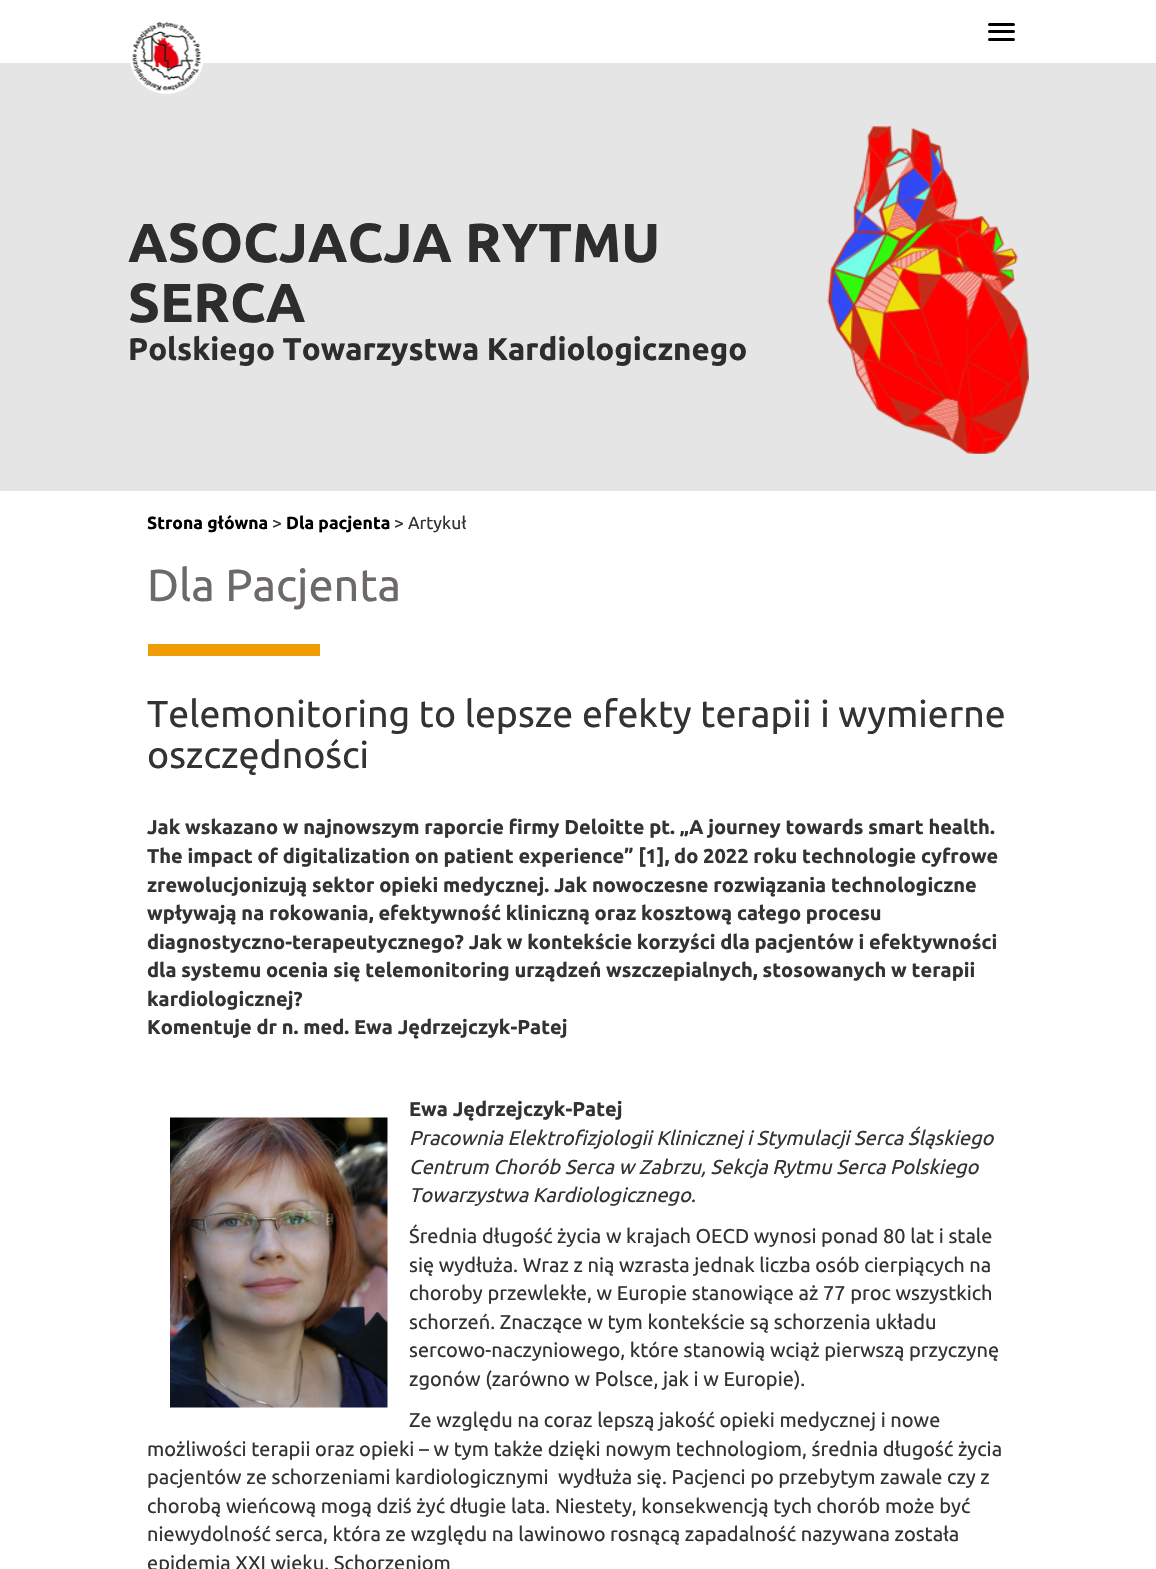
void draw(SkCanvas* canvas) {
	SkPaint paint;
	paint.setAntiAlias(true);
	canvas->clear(0xffffffff);
	paint.setColor(0xffe5e5e5);
	canvas->drawRect(SkRect::MakeXYWH(0, 63, 1156, 428), paint);
	canvas->drawImageRect(SkImages::DeferredFromEncodedData(SkData::MakeFromFileName("img1.png")), SkRect::MakeXYWH(130, 22, 74, 72), SkSamplingOptions());
	paint.setColor(0xff000000);
	canvas->drawRoundRect(SkRect::MakeXYWH(988, 23, 27, 3), 1.5, 1.5, paint);
	canvas->drawRoundRect(SkRect::MakeXYWH(988, 30, 27, 3), 1.5, 1.5, paint);
	canvas->drawRoundRect(SkRect::MakeXYWH(988, 38, 27, 3), 1.5, 1.5, paint);
	SkFont f1(fontMgr->matchFamilyStyle("Ubuntu", SkFontStyle::Bold()), 55);
	f1.setSubpixel(true);
	paint.setColor(0xff2e2d2d);
	canvas->drawString("ASOCJACJA RYTMU", 128, 262, f1, paint);
	canvas->drawString("SERCA", 128, 322, f1, paint);
	SkFont f2(fontMgr->matchFamilyStyle("Ubuntu", SkFontStyle::Bold()), 31.25);
	f2.setSubpixel(true);
	canvas->drawString("Polskiego Towarzystwa Kardiologicznego", 128, 360, f2, paint);
	canvas->drawImageRect(SkImages::DeferredFromEncodedData(SkData::MakeFromFileName("img2.png")), SkRect::MakeXYWH(827, 125, 202, 329), SkSamplingOptions());
	SkFont f3(fontMgr->matchFamilyStyle("Ubuntu", SkFontStyle::Bold()), 17.5);
	f3.setSubpixel(true);
	paint.setColor(0xff000000);
	canvas->drawString("Strona główna", 147, 529, f3, paint);
	SkFont f4(fontMgr->matchFamilyStyle("Ubuntu", SkFontStyle::Normal()), 17.5);
	f4.setSubpixel(true);
	paint.setColor(0xff333333);
	canvas->drawString(">", 272, 529, f4, paint);
	paint.setColor(0xff000000);
	canvas->drawString("Dla pacjenta", 286, 529, f3, paint);
	paint.setColor(0xff333333);
	canvas->drawString("> Artykuł", 394, 529, f4, paint);
	SkFont f5(fontMgr->matchFamilyStyle("Ubuntu", SkFontStyle::Normal()), 45);
	f5.setSubpixel(true);
	paint.setColor(0xff6c6968);
	canvas->drawString("Dla Pacjenta", 147, 601, f5, paint);
	paint.setColor(0xfff09d05);
	canvas->drawRect(SkRect::MakeXYWH(148, 644, 172, 12), paint);
	SkFont f6(fontMgr->matchFamilyStyle("Ubuntu", SkFontStyle::Normal()), 37.5);
	f6.setSubpixel(true);
	paint.setColor(0xff333333);
	canvas->drawString("Telemonitoring to lepsze efekty terapii i wymierne", 147, 727, f6, paint);
	canvas->drawString("oszczędności", 147, 768, f6, paint);
	SkFont f7(fontMgr->matchFamilyStyle("Ubuntu", SkFontStyle::Bold()), 20);
	f7.setSubpixel(true);
	canvas->drawString("Jak wskazano w najnowszym raporcie firmy Deloitte pt. „A journey towards smart health.", 147, 834, f7, paint);
	canvas->drawString("The impact of digitalization on patient experience” [1], do 2022 roku technologie cyfrowe", 147, 863, f7, paint);
	canvas->drawString("zrewolucjonizują sektor opieki medycznej. Jak nowoczesne rozwiązania technologiczne", 147, 892, f7, paint);
	canvas->drawString("wpływają na rokowania, efektywność kliniczną oraz kosztową całego procesu", 147, 920, f7, paint);
	canvas->drawString("diagnostyczno-terapeutycznego? Jak w kontekście korzyści dla pacjentów i efektywności", 147, 949, f7, paint);
	canvas->drawString("dla systemu ocenia się telemonitoring urządzeń wszczepialnych, stosowanych w terapii", 147, 977, f7, paint);
	canvas->drawString("kardiologicznej?", 147, 1006, f7, paint);
	canvas->drawString("Komentuje dr n. med. Ewa Jędrzejczyk-Patej", 147, 1034, f7, paint);
	canvas->drawImageRect(SkImages::DeferredFromEncodedData(SkData::MakeFromFileName("img3.png")), SkRect::MakeXYWH(170, 1117, 218, 291), SkSamplingOptions());
	canvas->drawString("Ewa Jędrzejczyk-Patej", 409, 1116, f7, paint);
	SkFont f8(fontMgr->matchFamilyStyle("Ubuntu", SkFontStyle::Italic()), 20);
	f8.setSubpixel(true);
	canvas->drawString("Pracownia Elektrofizjologii Klinicznej i Stymulacji Serca Śląskiego", 409, 1145, f8, paint);
	canvas->drawString("Centrum Chorób Serca w Zabrzu, Sekcja Rytmu Serca Polskiego", 409, 1174, f8, paint);
	canvas->drawString("Towarzystwa Kardiologicznego.", 409, 1202, f8, paint);
	SkFont f9(fontMgr->matchFamilyStyle("Ubuntu", SkFontStyle::Normal()), 20);
	f9.setSubpixel(true);
	canvas->drawString("Średnia długość życia w krajach OECD wynosi ponad 80 lat i stale", 409, 1243, f9, paint);
	canvas->drawString("się wydłuża. Wraz z nią wzrasta jednak liczba osób cierpiących na", 409, 1272, f9, paint);
	canvas->drawString("choroby przewlekłe, w Europie stanowiące aż 77 proc wszystkich", 409, 1300, f9, paint);
	canvas->drawString("schorzeń. Znaczące w tym kontekście są schorzenia układu", 409, 1329, f9, paint);
	canvas->drawString("sercowo-naczyniowego, które stanowią wciąż pierwszą przyczynę", 409, 1357, f9, paint);
	canvas->drawString("zgonów (zarówno w Polsce, jak i w Europie).", 409, 1386, f9, paint);
	canvas->drawString("Ze względu na coraz lepszą jakość opieki medycznej i nowe", 409, 1427, f9, paint);
	canvas->drawString("możliwości terapii oraz opieki – w tym także dzięki nowym technologiom, średnia długość życia", 147, 1456, f9, paint);
	canvas->drawString("pacjentów ze schorzeniami kardiologicznymi  wydłuża się. Pacjenci po przebytym zawale czy z", 147, 1484, f9, paint);
	canvas->drawString("chorobą wieńcową mogą dziś żyć długie lata. Niestety, konsekwencją tych chorób może być", 147, 1513, f9, paint);
	canvas->drawString("niewydolność serca, która ze względu na lawinowo rosnącą zapadalność nazywana została", 147, 1541, f9, paint);
	canvas->drawString("epidemią XXI wieku. Schorzeniom", 147, 1570, f9, paint);
}
